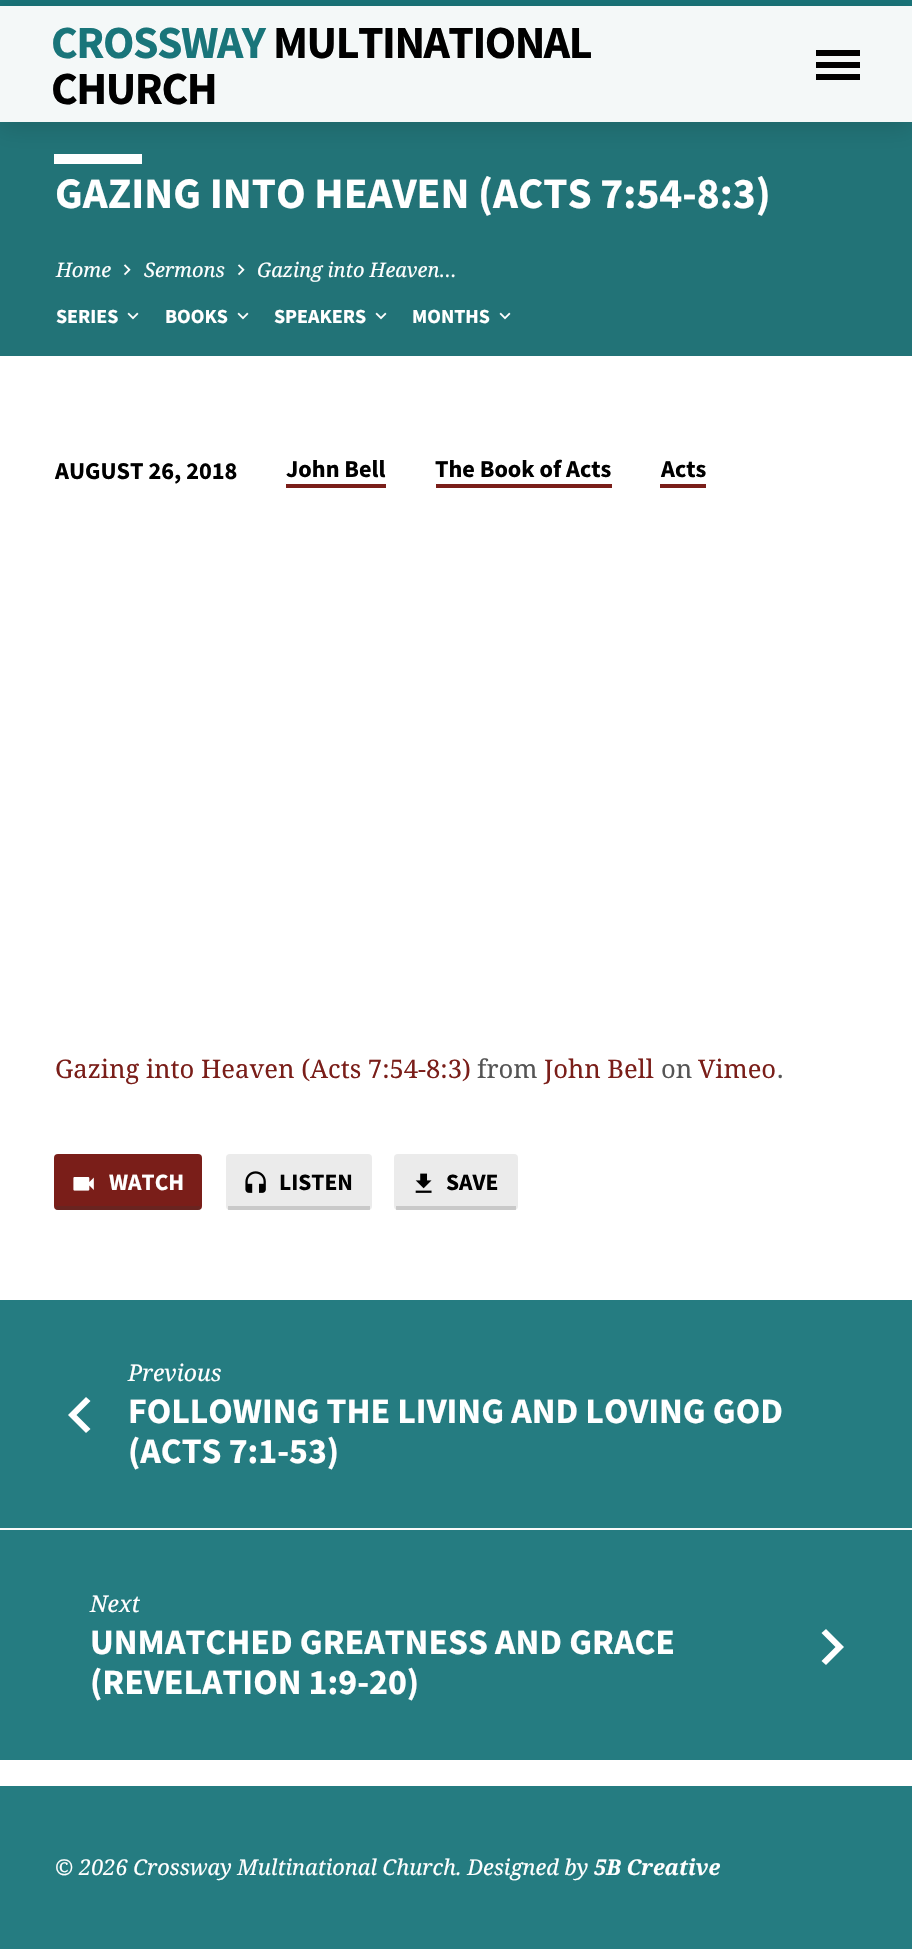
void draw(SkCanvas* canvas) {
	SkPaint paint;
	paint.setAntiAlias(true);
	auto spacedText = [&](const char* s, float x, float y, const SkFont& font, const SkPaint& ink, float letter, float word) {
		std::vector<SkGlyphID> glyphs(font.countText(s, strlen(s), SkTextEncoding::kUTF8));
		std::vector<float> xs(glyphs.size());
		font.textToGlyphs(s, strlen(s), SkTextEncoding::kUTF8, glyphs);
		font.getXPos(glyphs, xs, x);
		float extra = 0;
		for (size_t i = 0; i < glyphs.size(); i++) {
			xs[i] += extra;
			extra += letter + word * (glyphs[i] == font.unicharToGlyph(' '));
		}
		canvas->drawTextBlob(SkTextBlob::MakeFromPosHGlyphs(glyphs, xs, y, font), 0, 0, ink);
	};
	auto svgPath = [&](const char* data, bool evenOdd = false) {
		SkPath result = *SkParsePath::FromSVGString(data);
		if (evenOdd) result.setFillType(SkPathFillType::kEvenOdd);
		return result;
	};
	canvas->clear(0xffffffff);
	paint.setColor(0xff19757a);
	canvas->drawRect(SkRect::MakeXYWH(0, 0, 912, 6), paint);
	paint.setColor(0xfff4f8f8);
	canvas->drawRect(SkRect::MakeXYWH(0, 6, 912, 116), paint);
	paint.setColor(0xff227377);
	canvas->drawRect(SkRect::MakeXYWH(0, 122, 912, 234), paint);
	paint.setColor(0xffffffff);
	canvas->drawRect(SkRect::MakeXYWH(54, 154, 88, 10), paint);
	canvas->save();
	canvas->clipPath(svgPath("M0 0H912V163H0ZM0 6H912V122H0Z", true), true);
	paint.setColor(0x24000000);
	paint.setMaskFilter(SkMaskFilter::MakeBlur(kNormal_SkBlurStyle, 12));
	canvas->drawRect(SkRect::MakeXYWH(0, 10, 912, 116), paint);
	paint.setMaskFilter(nullptr);
	canvas->restore();
	SkFont f1(fontMgr->matchFamilyStyle("Source Sans Pro", SkFontStyle::Bold()), 46);
	f1.setSubpixel(true);
	paint.setColor(0xff19757a);
	spacedText("CROSSWAY", 51, 58, f1, paint, -1.5, 0);
	paint.setColor(0xff000000);
	spacedText("MULTINATIONAL", 273, 58, f1, paint, -1.5, 0);
	spacedText("CHURCH", 51, 104, f1, paint, -1.5, 0);
	canvas->drawRect(SkRect::MakeXYWH(816, 50, 44, 6), paint);
	canvas->drawRect(SkRect::MakeXYWH(816, 62, 44, 6), paint);
	canvas->drawRect(SkRect::MakeXYWH(816, 74, 44, 6), paint);
	SkFont f2(fontMgr->matchFamilyStyle("Source Sans Pro", SkFontStyle::Bold()), 43.5);
	f2.setSubpixel(true);
	paint.setColor(0xffffffff);
	canvas->drawString("GAZING INTO HEAVEN (ACTS 7:54-8:3)", 55, 208, f2, paint);
	SkFont f3(fontMgr->matchFamilyStyle("Noto Serif", SkFontStyle::Italic()), 20);
	f3.setSubpixel(true);
	canvas->drawString("Home", 56, 277, f3, paint);
	canvas->drawImageRect(SkImages::DeferredFromEncodedData(SkData::MakeFromFileName("img1.png")), SkRect::MakeXYWH(123, 264, 8, 12), SkSamplingOptions());
	canvas->drawString("Sermons", 144, 277, f3, paint);
	canvas->drawImageRect(SkImages::DeferredFromEncodedData(SkData::MakeFromFileName("img1.png")), SkRect::MakeXYWH(237, 264, 8, 12), SkSamplingOptions());
	canvas->drawString("Gazing into Heaven…", 257, 277, f3, paint);
	SkFont f4(fontMgr->matchFamilyStyle("Source Sans Pro", SkFontStyle::Bold()), 20);
	f4.setSubpixel(true);
	canvas->drawString("SERIES", 56, 323, f4, paint);
	canvas->drawImageRect(SkImages::DeferredFromEncodedData(SkData::MakeFromFileName("img2.png")), SkRect::MakeXYWH(127, 312, 12, 8), SkSamplingOptions());
	canvas->drawString("BOOKS", 165, 323, f4, paint);
	canvas->drawImageRect(SkImages::DeferredFromEncodedData(SkData::MakeFromFileName("img2.png")), SkRect::MakeXYWH(237, 312, 12, 8), SkSamplingOptions());
	canvas->drawString("SPEAKERS", 274, 323, f4, paint);
	canvas->drawImageRect(SkImages::DeferredFromEncodedData(SkData::MakeFromFileName("img2.png")), SkRect::MakeXYWH(375, 312, 12, 8), SkSamplingOptions());
	canvas->drawString("MONTHS", 412, 323, f4, paint);
	canvas->drawImageRect(SkImages::DeferredFromEncodedData(SkData::MakeFromFileName("img2.png")), SkRect::MakeXYWH(499, 312, 12, 8), SkSamplingOptions());
	SkFont f5(fontMgr->matchFamilyStyle("Source Sans Pro", SkFontStyle::Bold()), 24.25);
	f5.setSubpixel(true);
	paint.setColor(0xff000000);
	canvas->drawString("AUGUST 26, 2018", 55, 479, f5, paint);
	canvas->drawString("John Bell", 286, 477, f5, paint);
	paint.setColor(0xff7a1e19);
	canvas->drawRect(SkRect::MakeXYWH(286, 484, 100, 4), paint);
	paint.setColor(0xff000000);
	canvas->drawString("The Book of Acts", 435, 477, f5, paint);
	paint.setColor(0xff7a1e19);
	canvas->drawRect(SkRect::MakeXYWH(436, 484, 176, 4), paint);
	paint.setColor(0xff000000);
	canvas->drawString("Acts", 661, 477, f5, paint);
	paint.setColor(0xff7a1e19);
	canvas->drawRect(SkRect::MakeXYWH(660, 484, 46, 4), paint);
	SkFont f6(fontMgr->matchFamilyStyle("Noto Serif", SkFontStyle::Normal()), 25.6);
	f6.setSubpixel(true);
	canvas->drawString("Gazing into Heaven (Acts 7:54-8:3)", 55, 1078, f6, paint);
	paint.setColor(0xff555555);
	canvas->drawString("from", 477, 1078, f6, paint);
	paint.setColor(0xff7a1e19);
	canvas->drawString("John Bell", 544, 1078, f6, paint);
	paint.setColor(0xff555555);
	canvas->drawString("on", 661, 1078, f6, paint);
	paint.setColor(0xff7a1e19);
	canvas->drawString("Vimeo", 698, 1078, f6, paint);
	paint.setColor(0xff555555);
	canvas->drawString(".", 777, 1078, f6, paint);
	paint.setColor(0xff7a1e19);
	canvas->drawRoundRect(SkRect::MakeXYWH(54, 1154, 148, 56), 4, 4, paint);
	paint.setColor(0x40323232);
	canvas->drawRect(SkRect::MakeXYWH(56, 1206, 144, 4), paint);
	canvas->drawImageRect(SkImages::DeferredFromEncodedData(SkData::MakeFromFileName("img3.png")), SkRect::MakeXYWH(73, 1177, 21, 14), SkSamplingOptions());
	SkFont f7(fontMgr->matchFamilyStyle("Source Sans Pro", SkFontStyle::Bold()), 23.5);
	f7.setSubpixel(true);
	paint.setColor(0xffffffff);
	canvas->drawString("WATCH", 109, 1190, f7, paint);
	paint.setColor(0xffebebeb);
	canvas->drawRoundRect(SkRect::MakeXYWH(226, 1154, 146, 56), 4, 4, paint);
	paint.setColor(0x2e323232);
	canvas->drawRect(SkRect::MakeXYWH(228, 1206, 142, 4), paint);
	canvas->drawImageRect(SkImages::DeferredFromEncodedData(SkData::MakeFromFileName("img4.png")), SkRect::MakeXYWH(245, 1171, 21, 22), SkSamplingOptions());
	paint.setColor(0xff000000);
	canvas->drawString("LISTEN", 279, 1190, f7, paint);
	paint.setColor(0xffebebeb);
	canvas->drawRoundRect(SkRect::MakeXYWH(394, 1154, 124, 56), 4, 4, paint);
	paint.setColor(0x2e323232);
	canvas->drawRect(SkRect::MakeXYWH(396, 1206, 120, 4), paint);
	canvas->drawImageRect(SkImages::DeferredFromEncodedData(SkData::MakeFromFileName("img5.png")), SkRect::MakeXYWH(415, 1173, 17, 20), SkSamplingOptions());
	paint.setColor(0xff000000);
	canvas->drawString("SAVE", 446, 1190, f7, paint);
	paint.setColor(0xff257c81);
	canvas->drawRect(SkRect::MakeXYWH(0, 1300, 912, 460), paint);
	paint.setColor(0xfffafafa);
	canvas->drawRect(SkRect::MakeXYWH(0, 1528, 912, 2), paint);
	paint.setColor(0xffffffff);
	canvas->drawPath(svgPath("M90.5 1429L76.5 1415L90.5 1401L86 1397L68 1415L86 1433Z"), paint);
	SkFont f8(fontMgr->matchFamilyStyle("Noto Serif", SkFontStyle::Italic()), 23);
	f8.setSubpixel(true);
	canvas->drawString("Previous", 128, 1381, f8, paint);
	SkFont f9(fontMgr->matchFamilyStyle("Source Sans Pro", SkFontStyle::Bold()), 35.8);
	f9.setSubpixel(true);
	canvas->drawString("FOLLOWING THE LIVING AND LOVING GOD", 128, 1423, f9, paint);
	canvas->drawString("(ACTS 7:1-53)", 128, 1463, f9, paint);
	canvas->drawString("Next", 90, 1612, f8, paint);
	canvas->drawString("UNMATCHED GREATNESS AND GRACE", 90, 1654, f9, paint);
	canvas->drawString("(REVELATION 1:9-20)", 90, 1694, f9, paint);
	canvas->drawPath(svgPath("M821.5 1661L835.5 1647L821.5 1633L826 1629L844 1647L826 1665Z"), paint);
	paint.setColor(0xff257c81);
	canvas->drawRect(SkRect::MakeXYWH(0, 1786, 912, 163), paint);
	SkFont f10(fontMgr->matchFamilyStyle("Noto Serif", SkFontStyle::Italic()), 21.75);
	f10.setSubpixel(true);
	paint.setColor(0xffffffff);
	canvas->drawString("© 2026 Crossway Multinational Church. Designed by", 55, 1875, f10, paint);
	SkFont f11(fontMgr->matchFamilyStyle("Noto Serif", SkFontStyle::BoldItalic()), 21.75);
	f11.setSubpixel(true);
	canvas->drawString("5B Creative", 594, 1875, f11, paint);
}
